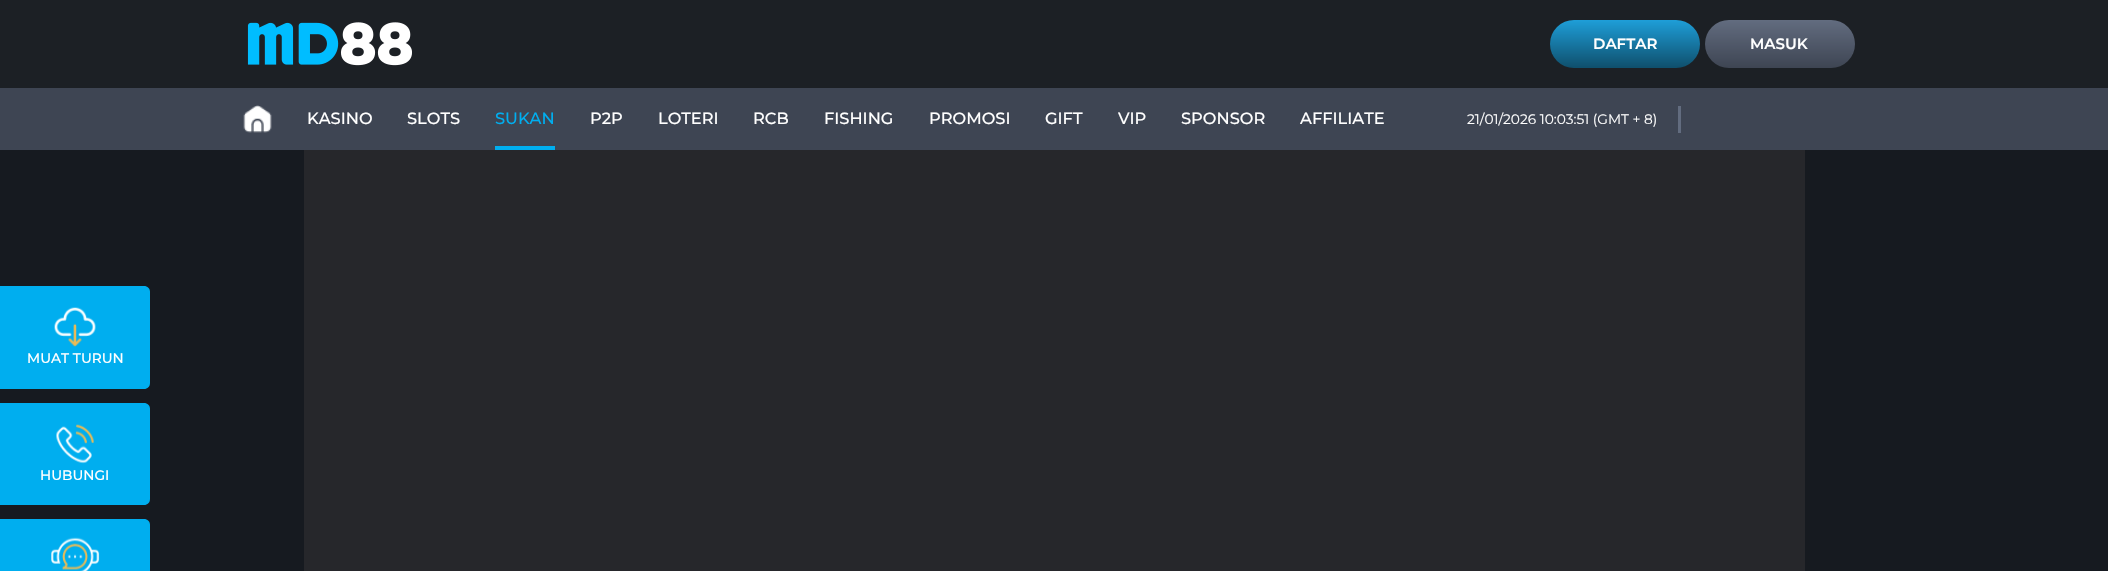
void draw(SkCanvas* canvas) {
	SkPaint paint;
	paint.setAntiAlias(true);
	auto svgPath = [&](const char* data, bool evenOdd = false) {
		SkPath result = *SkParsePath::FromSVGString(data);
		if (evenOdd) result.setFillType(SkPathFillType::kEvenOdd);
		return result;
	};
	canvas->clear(0xff161a20);
	paint.setColor(0xff1c2025);
	canvas->drawRect(SkRect::MakeXYWH(0, 0, 2108, 88), paint);
	canvas->drawImageRect(SkImages::DeferredFromEncodedData(SkData::MakeFromFileName("img1.png")), SkRect::MakeXYWH(247, 22, 165, 44), SkSamplingOptions());
	{
		const SkColor colors[] = {0xff1e9ed8, 0xff0f4f6c};
		const float stops[] = {0, 1};
		const SkPoint ends[] = {{1625, 20}, {1625, 68}};
		paint.setShader(SkGradientShader::MakeLinear(ends, colors, stops, 2, SkTileMode::kClamp));
		paint.setAlpha(255);
	}
	canvas->drawRoundRect(SkRect::MakeXYWH(1550, 20, 150, 48), 24, 24, paint);
	SkFont f1(fontMgr->matchFamilyStyle("Montserrat", SkFontStyle(600, SkFontStyle::kNormal_Width, SkFontStyle::kUpright_Slant)), 15);
	f1.setSubpixel(true);
	paint.setShader(nullptr);
	paint.setColor(0xffffffff);
	canvas->drawString("DAFTAR", 1593, 49, f1, paint);
	{
		const SkColor colors[] = {0xff626c7f, 0xff3e4553};
		const float stops[] = {0, 1};
		const SkPoint ends[] = {{1780, 20}, {1780, 68}};
		paint.setShader(SkGradientShader::MakeLinear(ends, colors, stops, 2, SkTileMode::kClamp));
		paint.setAlpha(255);
	}
	canvas->drawRoundRect(SkRect::MakeXYWH(1705, 20, 150, 48), 24, 24, paint);
	paint.setShader(nullptr);
	paint.setColor(0xffffffff);
	canvas->drawString("MASUK", 1750, 49, f1, paint);
	paint.setColor(0xff3e4553);
	canvas->drawRect(SkRect::MakeXYWH(0, 88, 2108, 62), paint);
	canvas->drawImageRect(SkImages::DeferredFromEncodedData(SkData::MakeFromFileName("img2.png")), SkRect::MakeXYWH(243, 105, 29, 28), SkSamplingOptions());
	SkFont f2(fontMgr->matchFamilyStyle("Montserrat", SkFontStyle(500, SkFontStyle::kNormal_Width, SkFontStyle::kUpright_Slant)), 16.25);
	f2.setSubpixel(true);
	paint.setColor(0xffffffff);
	canvas->drawString("KASINO", 307, 124, f2, paint);
	canvas->drawString("SLOTS", 407, 124, f2, paint);
	paint.setColor(0xff00aeef);
	canvas->drawString("SUKAN", 495, 124, f2, paint);
	canvas->drawRect(SkRect::MakeXYWH(495, 146, 60, 4), paint);
	paint.setColor(0xffffffff);
	canvas->drawString("P2P", 590, 124, f2, paint);
	canvas->drawString("LOTERI", 658, 124, f2, paint);
	canvas->drawString("RCB", 753, 124, f2, paint);
	canvas->drawString("FISHING", 824, 124, f2, paint);
	canvas->drawString("PROMOSI", 929, 124, f2, paint);
	canvas->drawString("GIFT", 1045, 124, f2, paint);
	canvas->drawString("VIP", 1118, 124, f2, paint);
	canvas->drawString("SPONSOR", 1181, 124, f2, paint);
	canvas->drawString("AFFILIATE", 1300, 124, f2, paint);
	paint.setColor(0xff626c7f);
	canvas->drawRect(SkRect::MakeXYWH(1678, 106, 3, 27), paint);
	SkFont f3(fontMgr->matchFamilyStyle("Montserrat", SkFontStyle::Normal()), 13.75);
	f3.setSubpixel(true);
	paint.setColor(0xffffffff);
	canvas->drawString("21/01/2026 10:03:51 (GMT + 8)", 1467, 124, f3, paint);
	paint.setColor(0xff00aeef);
	canvas->drawPath(svgPath("M-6 286H144C147.5 286 150 288.5 150 292V383C150 386.5 147.5 389 144 389H-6Z"), paint);
	canvas->drawImageRect(SkImages::DeferredFromEncodedData(SkData::MakeFromFileName("img3.png")), SkRect::MakeXYWH(54, 307, 42, 40), SkSamplingOptions());
	SkFont f4(fontMgr->matchFamilyStyle("Montserrat", SkFontStyle(500, SkFontStyle::kNormal_Width, SkFontStyle::kUpright_Slant)), 13.75);
	f4.setSubpixel(true);
	paint.setColor(0xffffffff);
	canvas->drawString("MUAT TURUN", 27, 363, f4, paint);
	paint.setColor(0xff00aeef);
	canvas->drawPath(svgPath("M-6 403H144C147.5 403 150 405.5 150 409V499C150 502.5 147.5 505 144 505H-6Z"), paint);
	canvas->drawImageRect(SkImages::DeferredFromEncodedData(SkData::MakeFromFileName("img4.png")), SkRect::MakeXYWH(56, 424, 38, 40), SkSamplingOptions());
	paint.setColor(0xffffffff);
	canvas->drawString("HUBUNGI", 40, 480, f4, paint);
	paint.setColor(0xff00aeef);
	canvas->drawPath(svgPath("M-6 519H144C147.5 519 150 521.5 150 525V571C150 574.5 147.5 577 144 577H-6Z"), paint);
	canvas->drawImageRect(SkImages::DeferredFromEncodedData(SkData::MakeFromFileName("img5.png")), SkRect::MakeXYWH(51, 537, 49, 34), SkSamplingOptions());
	paint.setColor(0xff26272b);
	canvas->drawRect(SkRect::MakeXYWH(304, 150, 1501, 421), paint);
}
